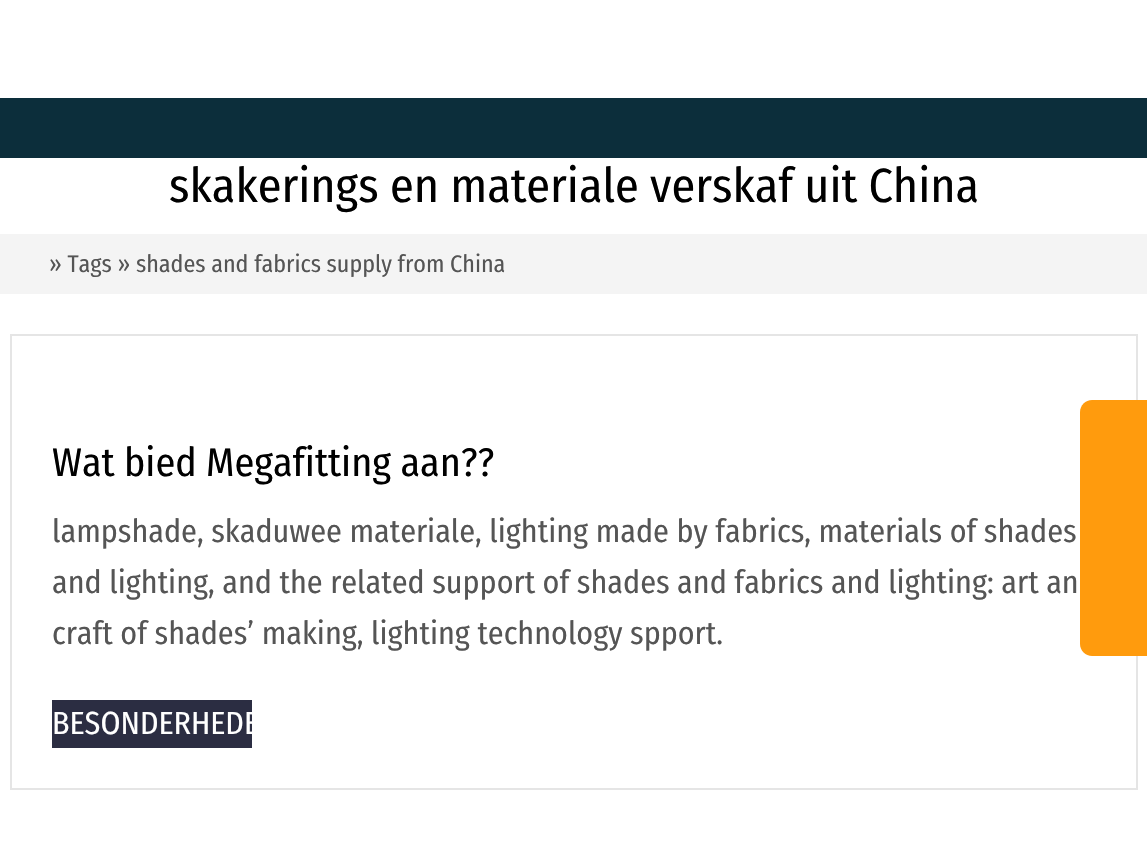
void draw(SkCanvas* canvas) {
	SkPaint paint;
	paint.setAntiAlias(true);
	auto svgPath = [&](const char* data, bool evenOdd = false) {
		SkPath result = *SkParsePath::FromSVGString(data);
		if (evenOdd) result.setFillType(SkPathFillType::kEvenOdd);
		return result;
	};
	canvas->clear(0xffffffff);
	paint.setColor(0xff0c2e3b);
	canvas->drawRect(SkRect::MakeXYWH(0, 98, 1147, 60), paint);
	SkFont f1(fontMgr->matchFamilyStyle("Fira Sans Condensed", SkFontStyle::Normal()), 48);
	f1.setSubpixel(true);
	paint.setColor(0xff000000);
	canvas->drawString("skakerings en materiale verskaf uit China", 169, 202, f1, paint);
	paint.setColor(0xfff4f4f4);
	canvas->drawRect(SkRect::MakeXYWH(0, 234, 1147, 60), paint);
	SkFont f2(fontMgr->matchFamilyStyle("Fira Sans Condensed", SkFontStyle::Normal()), 24);
	f2.setSubpixel(true);
	paint.setColor(0xff555555);
	canvas->drawString("» Tags » shades and fabrics supply from China", 49, 272, f2, paint);
	paint.setStroke(true);
	paint.setStrokeWidth(2);
	paint.setColor(0xffe5e5e5);
	canvas->drawRect(SkRect::MakeXYWH(11, 335, 1126, 454), paint);
	SkFont f3(fontMgr->matchFamilyStyle("Fira Sans Condensed", SkFontStyle::Normal()), 40);
	f3.setSubpixel(true);
	paint.setStroke(false);
	paint.setColor(0xff000000);
	canvas->drawString("Wat bied Megafitting aan?\077", 52, 476, f3, paint);
	SkFont f4(fontMgr->matchFamilyStyle("Fira Sans Condensed", SkFontStyle::Normal()), 32);
	f4.setSubpixel(true);
	paint.setColor(0xff555555);
	canvas->drawString("lampshade, skaduwee materiale, lighting made by fabrics, materials of shades", 52, 542, f4, paint);
	canvas->drawString("and lighting, and the related support of shades and fabrics and lighting: art an", 52, 593, f4, paint);
	canvas->drawString("craft of shades’ making, lighting technology spport.", 52, 644, f4, paint);
	paint.setColor(0xff2b2d42);
	canvas->drawRect(SkRect::MakeXYWH(52, 700, 200, 48), paint);
	paint.setColor(0xffffffff);
	canvas->drawString("BESONDERHEDE", 52, 734, f4, paint);
	paint.setColor(0xffff9b0d);
	canvas->drawPath(svgPath("M1092 400H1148V656H1092C1085.5 656 1080 650.5 1080 644V412C1080 405.5 1085.5 400 1092 400Z"), paint);
}
